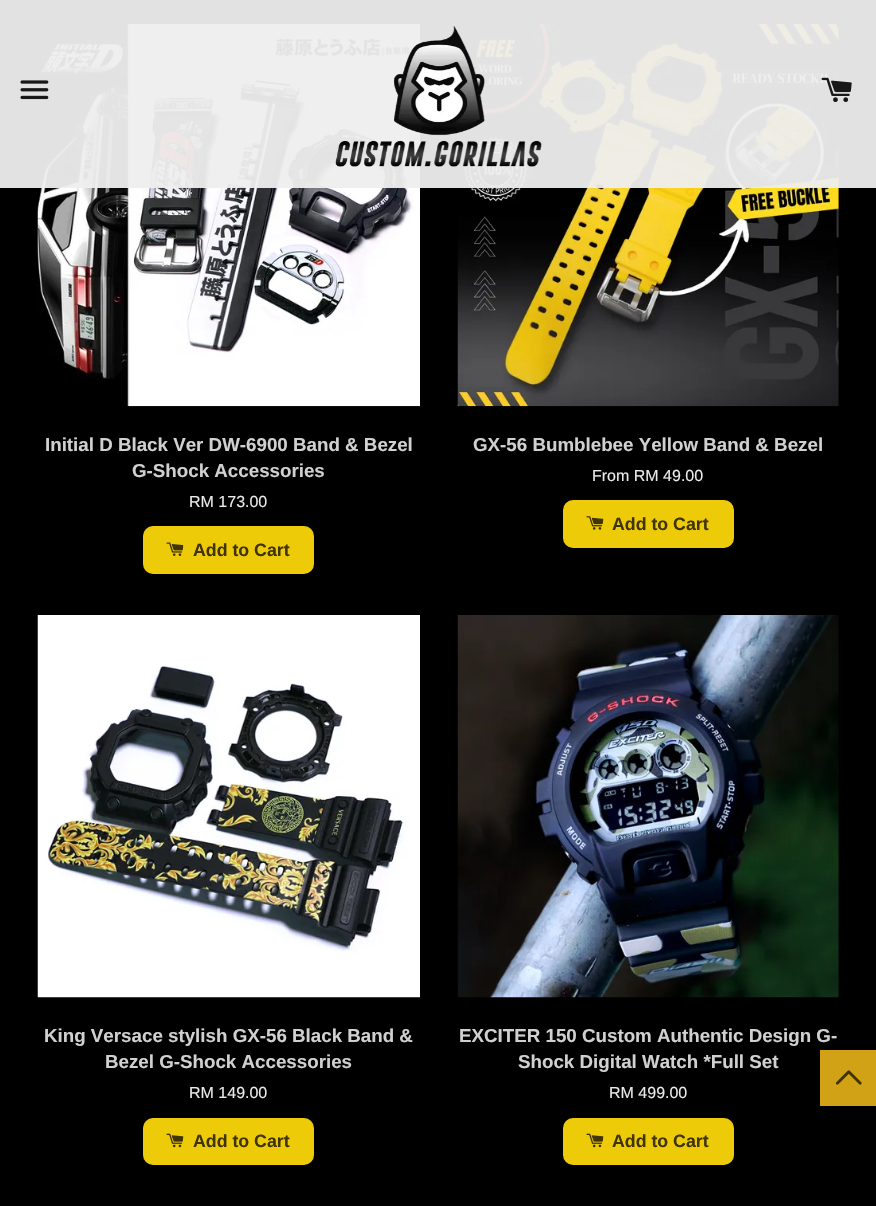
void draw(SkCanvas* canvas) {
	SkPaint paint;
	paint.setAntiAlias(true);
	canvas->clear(0xff000000);
	canvas->drawImageRect(SkImages::DeferredFromEncodedData(SkData::MakeFromFileName("img4.png")), SkRect::MakeXYWH(37, 23, 383, 384), SkSamplingOptions());
	canvas->drawImageRect(SkImages::DeferredFromEncodedData(SkData::MakeFromFileName("img6.png")), SkRect::MakeXYWH(457, 23, 382, 384), SkSamplingOptions());
	paint.setColor(0xf2eeeeee);
	canvas->drawRect(SkRect::MakeXYWH(0, 0, 876, 188), paint);
	canvas->drawImageRect(SkImages::DeferredFromEncodedData(SkData::MakeFromFileName("img1.png")), SkRect::MakeXYWH(20, 80, 29, 20), SkSamplingOptions());
	canvas->drawImageRect(SkImages::DeferredFromEncodedData(SkData::MakeFromFileName("img2.png")), SkRect::MakeXYWH(335, 26, 207, 141), SkSamplingOptions());
	canvas->drawImageRect(SkImages::DeferredFromEncodedData(SkData::MakeFromFileName("img3.png")), SkRect::MakeXYWH(821, 77, 31, 25), SkSamplingOptions());
	SkFont f1(fontMgr->matchFamilyStyle("Liberation Sans", SkFontStyle::Bold()), 18.75);
	f1.setSubpixel(true);
	paint.setColor(0xffd0d0d0);
	canvas->drawString("Initial D Black Ver DW-6900 Band & Bezel", 45, 451, f1, paint);
	canvas->drawString("G-Shock Accessories", 132, 477, f1, paint);
	SkFont f2(fontMgr->matchFamilyStyle("Liberation Sans", SkFontStyle::Normal()), 16);
	f2.setSubpixel(true);
	paint.setColor(0xffeaeaea);
	canvas->drawString("RM 173.00", 189, 507, f2, paint);
	paint.setColor(0xffeecb08);
	canvas->drawRoundRect(SkRect::MakeXYWH(143, 526, 171, 48), 10, 10, paint);
	canvas->drawImageRect(SkImages::DeferredFromEncodedData(SkData::MakeFromFileName("img5.png")), SkRect::MakeXYWH(166, 542, 18, 14), SkSamplingOptions());
	SkFont f3(fontMgr->matchFamilyStyle("Liberation Sans", SkFontStyle::Bold()), 17.75);
	f3.setSubpixel(true);
	paint.setColor(0xff413403);
	canvas->drawString("Add to Cart", 193, 556, f3, paint);
	paint.setColor(0xffd0d0d0);
	canvas->drawString("GX-56 Bumblebee Yellow Band & Bezel", 473, 451, f1, paint);
	paint.setColor(0xffeaeaea);
	canvas->drawString("From RM 49.00", 592, 481, f2, paint);
	paint.setColor(0xffeecb08);
	canvas->drawRoundRect(SkRect::MakeXYWH(563, 500, 171, 48), 10, 10, paint);
	canvas->drawImageRect(SkImages::DeferredFromEncodedData(SkData::MakeFromFileName("img7.png")), SkRect::MakeXYWH(586, 516, 18, 14), SkSamplingOptions());
	paint.setColor(0xff413403);
	canvas->drawString("Add to Cart", 612, 530, f3, paint);
	canvas->drawImageRect(SkImages::DeferredFromEncodedData(SkData::MakeFromFileName("img8.png")), SkRect::MakeXYWH(37, 615, 383, 383), SkSamplingOptions());
	paint.setColor(0xffd0d0d0);
	canvas->drawString("King Versace stylish GX-56 Black Band &", 44, 1042, f1, paint);
	canvas->drawString("Bezel G-Shock Accessories", 105, 1068, f1, paint);
	paint.setColor(0xffeaeaea);
	canvas->drawString("RM 149.00", 189, 1098, f2, paint);
	paint.setColor(0xffeecb08);
	canvas->drawRoundRect(SkRect::MakeXYWH(143, 1118, 171, 47), 10, 10, paint);
	canvas->drawImageRect(SkImages::DeferredFromEncodedData(SkData::MakeFromFileName("img9.png")), SkRect::MakeXYWH(166, 1133, 18, 15), SkSamplingOptions());
	paint.setColor(0xff413403);
	canvas->drawString("Add to Cart", 193, 1147, f3, paint);
	canvas->drawImageRect(SkImages::DeferredFromEncodedData(SkData::MakeFromFileName("img10.png")), SkRect::MakeXYWH(457, 615, 382, 383), SkSamplingOptions());
	paint.setColor(0xffd0d0d0);
	canvas->drawString("EXCITER 150 Custom Authentic Design G-", 459, 1042, f1, paint);
	canvas->drawString("Shock Digital Watch *Full Set", 518, 1068, f1, paint);
	paint.setColor(0xffeaeaea);
	canvas->drawString("RM 499.00", 609, 1098, f2, paint);
	paint.setColor(0xffeecb08);
	canvas->drawRoundRect(SkRect::MakeXYWH(563, 1118, 171, 47), 10, 10, paint);
	canvas->drawImageRect(SkImages::DeferredFromEncodedData(SkData::MakeFromFileName("img9.png")), SkRect::MakeXYWH(586, 1133, 18, 15), SkSamplingOptions());
	paint.setColor(0xff413403);
	canvas->drawString("Add to Cart", 612, 1147, f3, paint);
	paint.setColor(0xffd2a216);
	canvas->drawRect(SkRect::MakeXYWH(820, 1050, 56, 56), paint);
	canvas->drawImageRect(SkImages::DeferredFromEncodedData(SkData::MakeFromFileName("img11.png")), SkRect::MakeXYWH(835, 1070, 27, 15), SkSamplingOptions());
}
